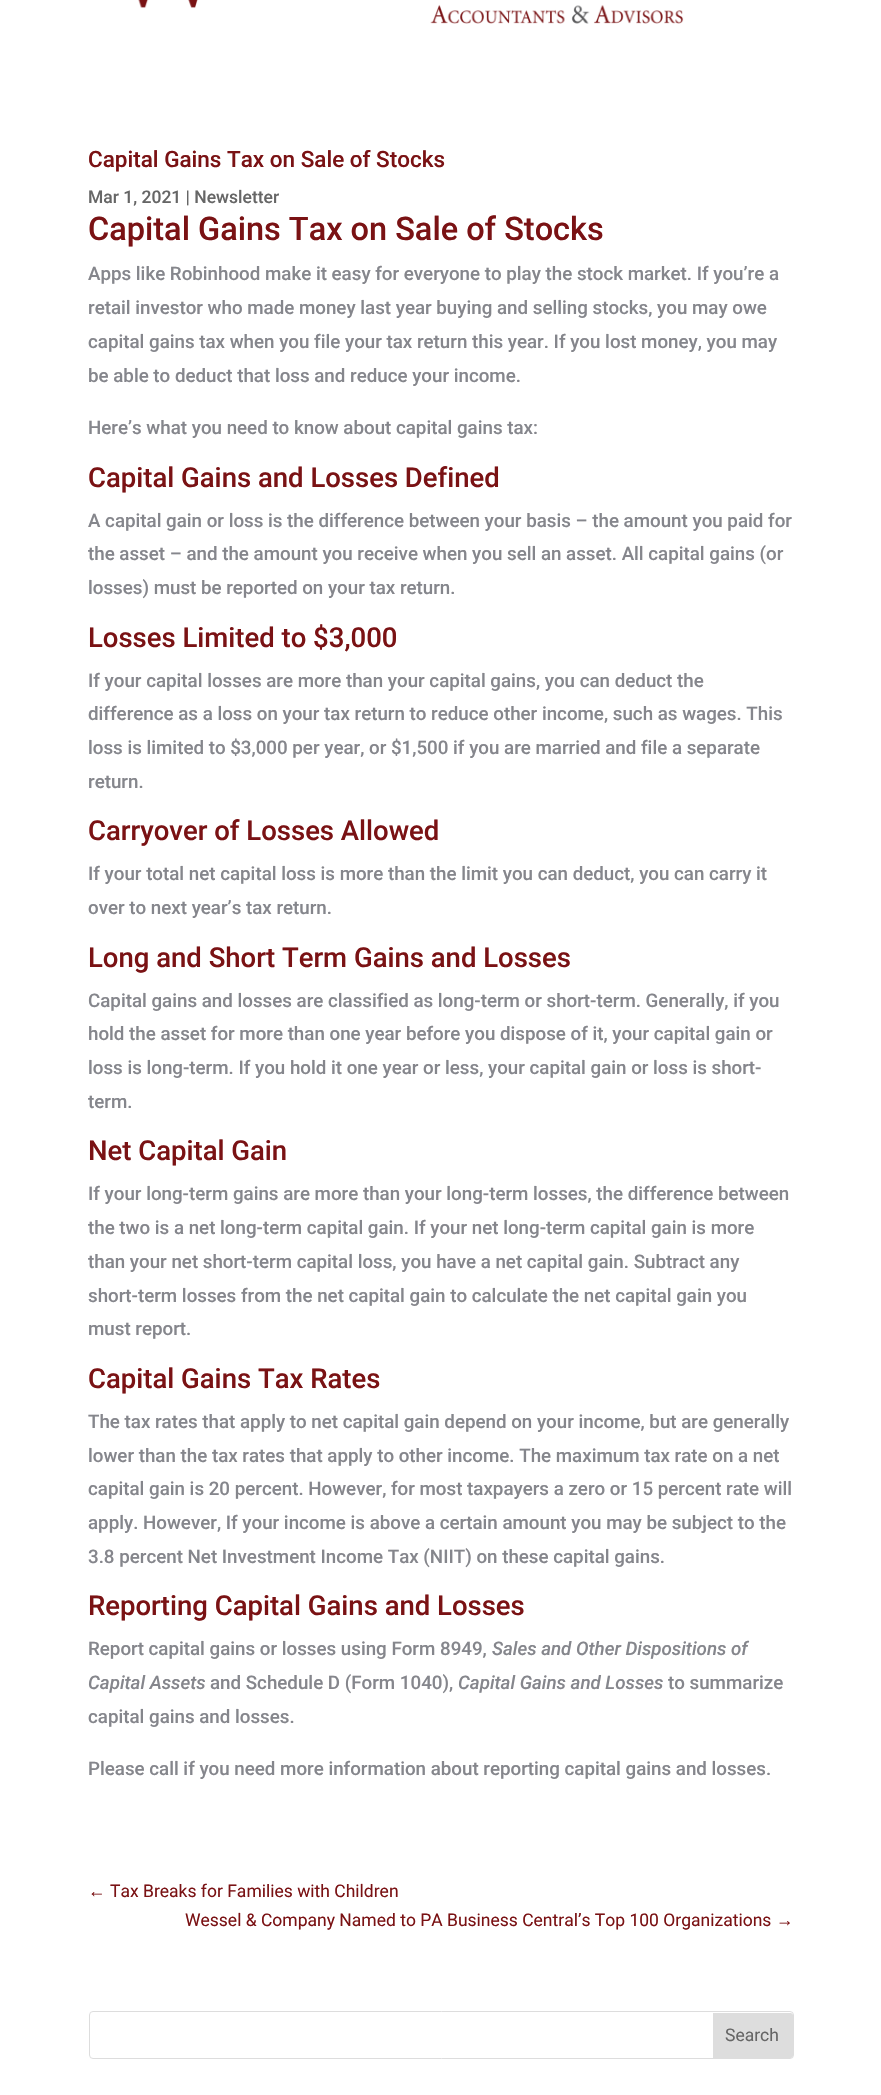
void draw(SkCanvas* canvas) {
	SkPaint paint;
	paint.setAntiAlias(true);
	auto svgPath = [&](const char* data, bool evenOdd = false) {
		SkPath result = *SkParsePath::FromSVGString(data);
		if (evenOdd) result.setFillType(SkPathFillType::kEvenOdd);
		return result;
	};
	canvas->clear(0xffffffff);
	canvas->drawImageRect(SkImages::DeferredFromEncodedData(SkData::MakeFromFileName("img1.png")), SkRect::MakeXYWH(138, 0, 546, 24), SkSamplingOptions());
	SkFont f1(fontMgr->matchFamilyStyle("Roboto", SkFontStyle(500, SkFontStyle::kNormal_Width, SkFontStyle::kUpright_Slant)), 22.5);
	f1.setSubpixel(true);
	paint.setColor(0xff7a1214);
	canvas->drawString("Capital Gains Tax on Sale of Stocks", 88, 167, f1, paint);
	SkFont f2(fontMgr->matchFamilyStyle("Roboto", SkFontStyle(500, SkFontStyle::kNormal_Width, SkFontStyle::kUpright_Slant)), 17.5);
	f2.setSubpixel(true);
	paint.setColor(0xff666666);
	canvas->drawString("Mar 1, 2021 | Newsletter", 88, 203, f2, paint);
	SkFont f3(fontMgr->matchFamilyStyle("Roboto", SkFontStyle(500, SkFontStyle::kNormal_Width, SkFontStyle::kUpright_Slant)), 32.5);
	f3.setSubpixel(true);
	paint.setColor(0xff7a1214);
	canvas->drawString("Capital Gains Tax on Sale of Stocks", 88, 240, f3, paint);
	SkFont f4(fontMgr->matchFamilyStyle("Roboto", SkFontStyle(500, SkFontStyle::kNormal_Width, SkFontStyle::kUpright_Slant)), 18.75);
	f4.setSubpixel(true);
	paint.setColor(0xff85868c);
	canvas->drawString("Apps like Robinhood make it easy for everyone to play the stock market. If you’re a", 88, 280, f4, paint);
	canvas->drawString("retail investor who made money last year buying and selling stocks, you may owe", 88, 314, f4, paint);
	canvas->drawString("capital gains tax when you file your tax return this year. If you lost money, you may", 88, 348, f4, paint);
	canvas->drawString("be able to deduct that loss and reduce your income.", 88, 382, f4, paint);
	canvas->drawString("Here’s what you need to know about capital gains tax:", 88, 434, f4, paint);
	SkFont f5(fontMgr->matchFamilyStyle("Roboto", SkFontStyle(500, SkFontStyle::kNormal_Width, SkFontStyle::kUpright_Slant)), 27.5);
	f5.setSubpixel(true);
	paint.setColor(0xff7a1214);
	canvas->drawString("Capital Gains and Losses Defined", 88, 487, f5, paint);
	paint.setColor(0xff85868c);
	canvas->drawString("A capital gain or loss is the difference between your basis – the amount you paid for", 88, 527, f4, paint);
	canvas->drawString("the asset – and the amount you receive when you sell an asset. All capital gains (or", 88, 560, f4, paint);
	canvas->drawString("losses) must be reported on your tax return.", 88, 594, f4, paint);
	paint.setColor(0xff7a1214);
	canvas->drawString("Losses Limited to $3,000", 88, 647, f5, paint);
	paint.setColor(0xff85868c);
	canvas->drawString("If your capital losses are more than your capital gains, you can deduct the", 88, 687, f4, paint);
	canvas->drawString("difference as a loss on your tax return to reduce other income, such as wages. This", 88, 720, f4, paint);
	canvas->drawString("loss is limited to $3,000 per year, or $1,500 if you are married and file a separate", 88, 754, f4, paint);
	canvas->drawString("return.", 88, 788, f4, paint);
	paint.setColor(0xff7a1214);
	canvas->drawString("Carryover of Losses Allowed", 88, 840, f5, paint);
	paint.setColor(0xff85868c);
	canvas->drawString("If your total net capital loss is more than the limit you can deduct, you can carry it", 88, 880, f4, paint);
	canvas->drawString("over to next year’s tax return.", 88, 914, f4, paint);
	paint.setColor(0xff7a1214);
	canvas->drawString("Long and Short Term Gains and Losses", 88, 967, f5, paint);
	paint.setColor(0xff85868c);
	canvas->drawString("Capital gains and losses are classified as long-term or short-term. Generally, if you", 88, 1007, f4, paint);
	canvas->drawString("hold the asset for more than one year before you dispose of it, your capital gain or", 88, 1040, f4, paint);
	canvas->drawString("loss is long-term. If you hold it one year or less, your capital gain or loss is short-", 88, 1074, f4, paint);
	canvas->drawString("term.", 88, 1108, f4, paint);
	paint.setColor(0xff7a1214);
	canvas->drawString("Net Capital Gain", 88, 1160, f5, paint);
	paint.setColor(0xff85868c);
	canvas->drawString("If your long-term gains are more than your long-term losses, the difference between", 88, 1200, f4, paint);
	canvas->drawString("the two is a net long-term capital gain. If your net long-term capital gain is more", 88, 1234, f4, paint);
	canvas->drawString("than your net short-term capital loss, you have a net capital gain. Subtract any", 88, 1268, f4, paint);
	canvas->drawString("short-term losses from the net capital gain to calculate the net capital gain you", 88, 1302, f4, paint);
	canvas->drawString("must report.", 88, 1335, f4, paint);
	paint.setColor(0xff7a1214);
	canvas->drawString("Capital Gains Tax Rates", 88, 1388, f5, paint);
	paint.setColor(0xff85868c);
	canvas->drawString("The tax rates that apply to net capital gain depend on your income, but are generally", 88, 1428, f4, paint);
	canvas->drawString("lower than the tax rates that apply to other income. The maximum tax rate on a net", 88, 1462, f4, paint);
	canvas->drawString("capital gain is 20 percent. However, for most taxpayers a zero or 15 percent rate will", 88, 1495, f4, paint);
	canvas->drawString("apply. However, If your income is above a certain amount you may be subject to the", 88, 1529, f4, paint);
	canvas->drawString("3.8 percent Net Investment Income Tax (NIIT) on these capital gains.", 88, 1563, f4, paint);
	paint.setColor(0xff7a1214);
	canvas->drawString("Reporting Capital Gains and Losses", 88, 1615, f5, paint);
	paint.setColor(0xff85868c);
	canvas->drawString("Report capital gains or losses using Form 8949,", 88, 1655, f4, paint);
	SkFont f6(fontMgr->matchFamilyStyle("Roboto", SkFontStyle(500, SkFontStyle::kNormal_Width, SkFontStyle::kItalic_Slant)), 18.75);
	f6.setSubpixel(true);
	canvas->drawString("Sales and Other Dispositions of", 492, 1655, f6, paint);
	canvas->drawString("Capital Assets", 88, 1689, f6, paint);
	canvas->drawString("and Schedule D (Form 1040),", 210, 1689, f4, paint);
	canvas->drawString("Capital Gains and Losses", 458, 1689, f6, paint);
	canvas->drawString("to summarize", 668, 1689, f4, paint);
	canvas->drawString("capital gains and losses.", 88, 1723, f4, paint);
	canvas->drawString("Please call if you need more information about reporting capital gains and losses.", 88, 1775, f4, paint);
	SkFont f7(fontMgr->matchFamilyStyle("Liberation Sans", SkFontStyle::Normal()), 17.5);
	f7.setSubpixel(true);
	paint.setColor(0xff7a1214);
	canvas->drawString("←", 88, 1897, f7, paint);
	SkFont f8(fontMgr->matchFamilyStyle("Roboto", SkFontStyle::Normal()), 17.5);
	f8.setSubpixel(true);
	canvas->drawString("Tax Breaks for Families with Children", 110, 1897, f8, paint);
	canvas->drawString("Wessel & Company Named to PA Business Central’s Top 100 Organizations", 185, 1926, f8, paint);
	canvas->drawString("→", 776, 1926, f7, paint);
	paint.setStroke(true);
	paint.setStrokeWidth(1);
	paint.setColor(0xffdddddd);
	canvas->drawRoundRect(SkRect::MakeXYWH(89.5, 2011.5, 704, 47), 3.5, 3.5, paint);
	paint.setStroke(false);
	canvas->drawPath(svgPath("M713 2013H790.5C792 2013 793 2014 793 2015.5V2055.5C793 2057 792 2058 790.5 2058H713Z"), paint);
	paint.setColor(0xff666666);
	canvas->drawString("Search", 725, 2041, f8, paint);
}
